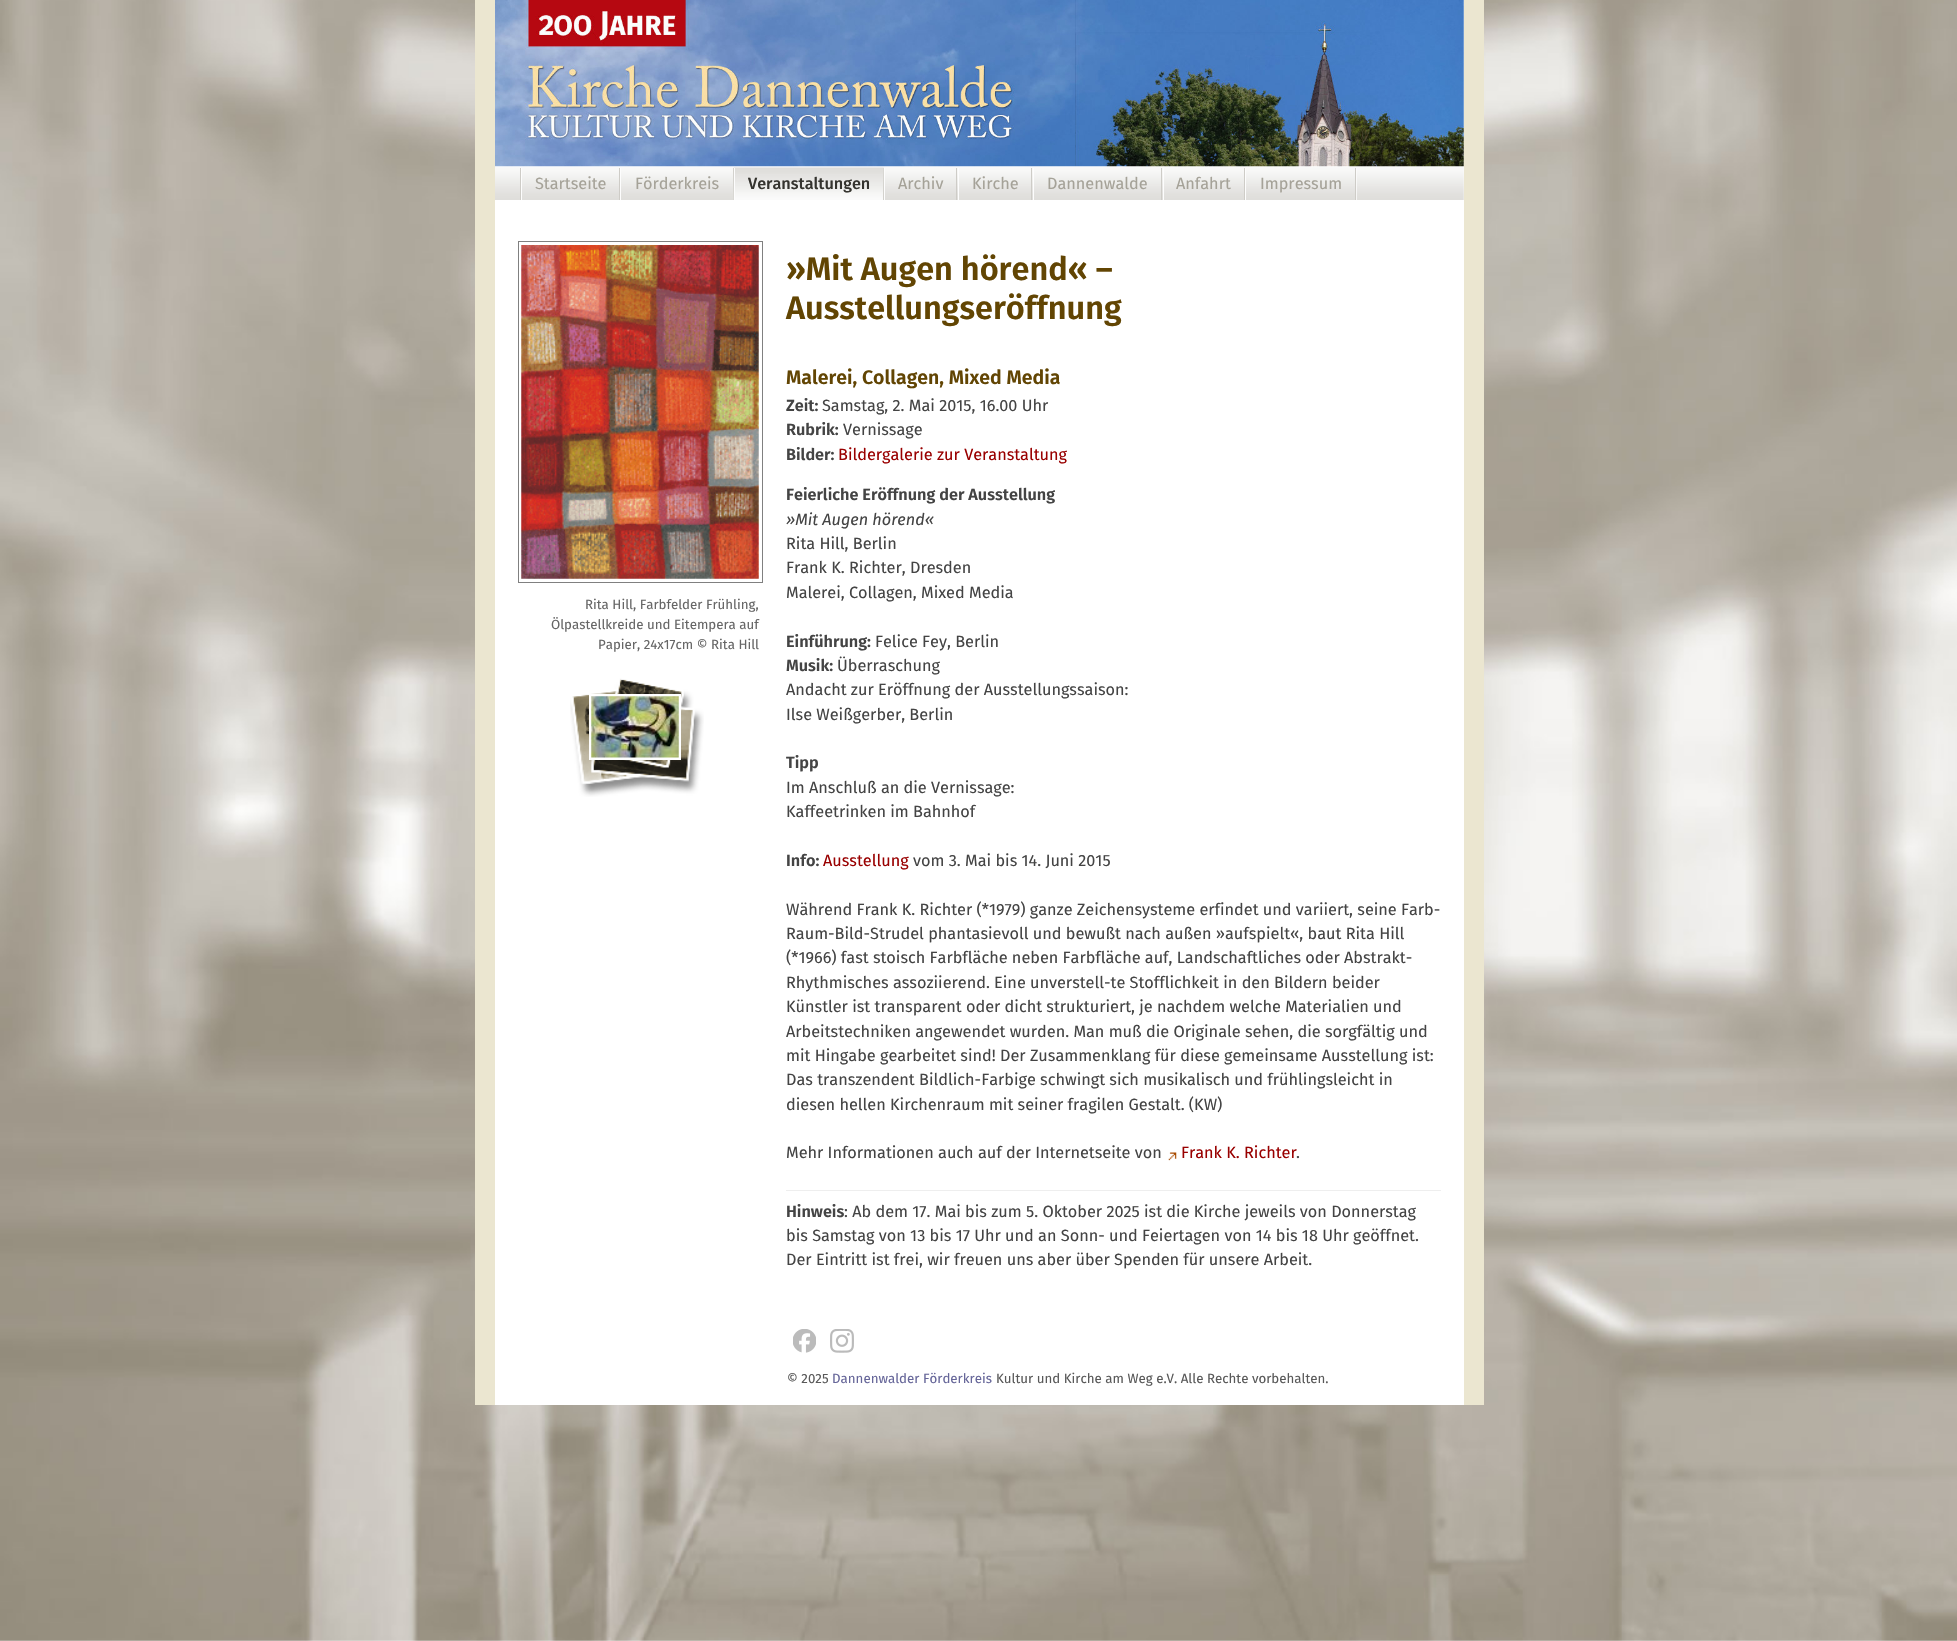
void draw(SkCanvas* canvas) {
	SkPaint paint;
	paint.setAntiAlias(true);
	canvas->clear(0xffffffff);
	canvas->drawImageRect(SkImages::DeferredFromEncodedData(SkData::MakeFromFileName("img1.png")), SkRect::MakeXYWH(0, 0, 1957, 1641), SkSamplingOptions());
	paint.setColor(0xffebe6d0);
	canvas->drawRect(SkRect::MakeXYWH(1464, 0, 20, 1405), paint);
	canvas->drawRect(SkRect::MakeXYWH(475, 0, 20, 1405), paint);
	paint.setColor(0xffffffff);
	canvas->drawRect(SkRect::MakeXYWH(495, 0, 969, 1405), paint);
	canvas->drawImageRect(SkImages::DeferredFromEncodedData(SkData::MakeFromFileName("img2.png")), SkRect::MakeXYWH(495, 0, 969, 167), SkSamplingOptions());
	canvas->drawImageRect(SkImages::DeferredFromEncodedData(SkData::MakeFromFileName("img3.png")), SkRect::MakeXYWH(495, 167, 969, 33), SkSamplingOptions());
	paint.setColor(0xfffdfdfd);
	canvas->drawRect(SkRect::MakeXYWH(1356, 168, 1, 32), paint);
	paint.setColor(0xffceccc7);
	canvas->drawRect(SkRect::MakeXYWH(520, 168, 1, 32), paint);
	canvas->drawImageRect(SkImages::DeferredFromEncodedData(SkData::MakeFromFileName("img4.png")), SkRect::MakeXYWH(522, 168, 97, 32), SkSamplingOptions());
	canvas->drawRect(SkRect::MakeXYWH(619, 168, 1, 32), paint);
	paint.setColor(0xfffdfdfd);
	canvas->drawRect(SkRect::MakeXYWH(521, 168, 1, 32), paint);
	SkFont f1(fontMgr->matchFamilyStyle("Fira Sans", SkFontStyle::Normal()), 16.25);
	f1.setSubpixel(true);
	paint.setColor(0xffa5a298);
	canvas->drawString("Startseite", 535, 189, f1, paint);
	canvas->drawImageRect(SkImages::DeferredFromEncodedData(SkData::MakeFromFileName("img5.png")), SkRect::MakeXYWH(621, 168, 112, 32), SkSamplingOptions());
	paint.setColor(0xffceccc7);
	canvas->drawRect(SkRect::MakeXYWH(733, 168, 1, 32), paint);
	paint.setColor(0xfffdfdfd);
	canvas->drawRect(SkRect::MakeXYWH(620, 168, 1, 32), paint);
	paint.setColor(0xffa5a298);
	canvas->drawString("Förderkreis", 635, 189, f1, paint);
	canvas->drawImageRect(SkImages::DeferredFromEncodedData(SkData::MakeFromFileName("img6.png")), SkRect::MakeXYWH(733, 167, 151, 33), SkSamplingOptions());
	paint.setColor(0xffceccc7);
	canvas->drawRect(SkRect::MakeXYWH(883, 168, 1, 32), paint);
	paint.setColor(0xfffdfdfd);
	canvas->drawRect(SkRect::MakeXYWH(734, 168, 1, 32), paint);
	SkFont f2(fontMgr->matchFamilyStyle("Fira Sans", SkFontStyle(500, SkFontStyle::kNormal_Width, SkFontStyle::kUpright_Slant)), 16.25);
	f2.setSubpixel(true);
	paint.setColor(0xff35342f);
	canvas->drawString("Veranstaltungen", 748, 189, f2, paint);
	canvas->drawImageRect(SkImages::DeferredFromEncodedData(SkData::MakeFromFileName("img7.png")), SkRect::MakeXYWH(883, 168, 75, 32), SkSamplingOptions());
	paint.setColor(0xffceccc7);
	canvas->drawRect(SkRect::MakeXYWH(956, 168, 1, 32), paint);
	paint.setColor(0xfffdfdfd);
	canvas->drawRect(SkRect::MakeXYWH(884, 168, 1, 32), paint);
	paint.setColor(0xffa5a298);
	canvas->drawString("Archiv", 898, 189, f1, paint);
	canvas->drawImageRect(SkImages::DeferredFromEncodedData(SkData::MakeFromFileName("img8.png")), SkRect::MakeXYWH(957, 168, 76, 32), SkSamplingOptions());
	paint.setColor(0xffceccc7);
	canvas->drawRect(SkRect::MakeXYWH(1031, 168, 1, 32), paint);
	paint.setColor(0xfffdfdfd);
	canvas->drawRect(SkRect::MakeXYWH(958, 168, 1, 32), paint);
	paint.setColor(0xffa5a298);
	canvas->drawString("Kirche", 972, 189, f1, paint);
	canvas->drawImageRect(SkImages::DeferredFromEncodedData(SkData::MakeFromFileName("img9.png")), SkRect::MakeXYWH(1032, 168, 131, 32), SkSamplingOptions());
	paint.setColor(0xffceccc7);
	canvas->drawRect(SkRect::MakeXYWH(1161, 168, 1, 32), paint);
	paint.setColor(0xfffdfdfd);
	canvas->drawRect(SkRect::MakeXYWH(1033, 168, 1, 32), paint);
	paint.setColor(0xffa5a298);
	canvas->drawString("Dannenwalde", 1047, 189, f1, paint);
	canvas->drawImageRect(SkImages::DeferredFromEncodedData(SkData::MakeFromFileName("img10.png")), SkRect::MakeXYWH(1162, 168, 82, 32), SkSamplingOptions());
	paint.setColor(0xffceccc7);
	canvas->drawRect(SkRect::MakeXYWH(1244, 168, 1, 32), paint);
	paint.setColor(0xfffdfdfd);
	canvas->drawRect(SkRect::MakeXYWH(1163, 168, 1, 32), paint);
	paint.setColor(0xffa5a298);
	canvas->drawString("Anfahrt", 1176, 189, f1, paint);
	canvas->drawImageRect(SkImages::DeferredFromEncodedData(SkData::MakeFromFileName("img11.png")), SkRect::MakeXYWH(1246, 168, 111, 32), SkSamplingOptions());
	paint.setColor(0xffceccc7);
	canvas->drawRect(SkRect::MakeXYWH(1355, 168, 1, 32), paint);
	paint.setColor(0xfffdfdfd);
	canvas->drawRect(SkRect::MakeXYWH(1245, 168, 1, 32), paint);
	paint.setColor(0xffa5a298);
	canvas->drawString("Impressum", 1260, 189, f1, paint);
	paint.setStroke(true);
	paint.setStrokeWidth(1);
	paint.setColor(0xff808080);
	canvas->drawRect(SkRect::MakeXYWH(518.5, 241.5, 244, 341), paint);
	canvas->drawImageRect(SkImages::DeferredFromEncodedData(SkData::MakeFromFileName("img12.png")), SkRect::MakeXYWH(521, 245, 238, 334), SkSamplingOptions());
	SkFont f3(fontMgr->matchFamilyStyle("Fira Sans", SkFontStyle::Normal()), 13.3);
	f3.setSubpixel(true);
	paint.setStroke(false);
	paint.setColor(0xff666666);
	canvas->drawString("Rita Hill, Farbfelder Frühling,", 585, 609, f3, paint);
	canvas->drawString("Ölpastellkreide und Eitempera auf", 551, 629, f3, paint);
	canvas->drawString("Papier, 24x17cm © Rita Hill", 598, 649, f3, paint);
	canvas->drawImageRect(SkImages::DeferredFromEncodedData(SkData::MakeFromFileName("img13.png")), SkRect::MakeXYWH(570, 678, 134, 119), SkSamplingOptions());
	paint.setStroke(true);
	paint.setStrokeWidth(3);
	paint.setColor(0xffffffff);
	canvas->drawRect(SkRect::MakeXYWH(590.5, 695.5, 89, 63), paint);
	canvas->drawImageRect(SkImages::DeferredFromEncodedData(SkData::MakeFromFileName("img14.png")), SkRect::MakeXYWH(591, 696, 88, 62), SkSamplingOptions());
	SkFont f4(fontMgr->matchFamilyStyle("Fira Sans", SkFontStyle(600, SkFontStyle::kNormal_Width, SkFontStyle::kUpright_Slant)), 32.5);
	f4.setSubpixel(true);
	paint.setStroke(false);
	paint.setColor(0xff624503);
	canvas->drawString("»Mit Augen hörend« –", 786, 280, f4, paint);
	canvas->drawString("Ausstellungseröffnung", 786, 319, f4, paint);
	SkFont f5(fontMgr->matchFamilyStyle("Fira Sans", SkFontStyle(600, SkFontStyle::kNormal_Width, SkFontStyle::kUpright_Slant)), 19.5);
	f5.setSubpixel(true);
	canvas->drawString("Malerei, Collagen, Mixed Media", 786, 384, f5, paint);
	SkFont f6(fontMgr->matchFamilyStyle("Fira Sans", SkFontStyle(600, SkFontStyle::kNormal_Width, SkFontStyle::kUpright_Slant)), 16.25);
	f6.setSubpixel(true);
	paint.setColor(0xff444444);
	canvas->drawString("Zeit:", 786, 411, f6, paint);
	canvas->drawString("Samstag, 2. Mai 2015, 16.00 Uhr", 822, 411, f1, paint);
	canvas->drawString("Rubrik:", 786, 435, f6, paint);
	canvas->drawString("Vernissage", 843, 435, f1, paint);
	canvas->drawString("Bilder:", 786, 460, f6, paint);
	paint.setColor(0xff990000);
	canvas->drawString("Bildergalerie zur Veranstaltung", 838, 460, f1, paint);
	paint.setColor(0xff444444);
	canvas->drawString("Feierliche Eröffnung der Ausstellung", 786, 500, f6, paint);
	SkFont f7(fontMgr->matchFamilyStyle("Fira Sans", SkFontStyle::Italic()), 16.25);
	f7.setSubpixel(true);
	canvas->drawString("»Mit Augen hörend«", 786, 525, f7, paint);
	canvas->drawString("Rita Hill, Berlin", 786, 549, f1, paint);
	canvas->drawString("Frank K. Richter, Dresden", 786, 573, f1, paint);
	canvas->drawString("Malerei, Collagen, Mixed Media", 786, 598, f1, paint);
	canvas->drawString("Einführung:", 786, 647, f6, paint);
	canvas->drawString("Felice Fey, Berlin", 875, 647, f1, paint);
	canvas->drawString("Musik:", 786, 671, f6, paint);
	canvas->drawString("Überraschung", 837, 671, f1, paint);
	canvas->drawString("Andacht zur Eröffnung der Ausstellungssaison:", 786, 695, f1, paint);
	canvas->drawString("Ilse Weißgerber, Berlin", 786, 720, f1, paint);
	canvas->drawString("Tipp", 786, 768, f6, paint);
	canvas->drawString("Im Anschluß an die Vernissage:", 786, 793, f1, paint);
	canvas->drawString("Kaffeetrinken im Bahnhof", 786, 817, f1, paint);
	canvas->drawString("Info:", 786, 866, f6, paint);
	paint.setColor(0xff990000);
	canvas->drawString("Ausstellung", 823, 866, f1, paint);
	paint.setColor(0xff444444);
	canvas->drawString("vom 3. Mai bis 14. Juni 2015", 913, 866, f1, paint);
	canvas->drawString("Während Frank K. Richter (*1979) ganze Zeichensysteme erfindet und variiert, seine Farb-", 786, 915, f1, paint);
	canvas->drawString("Raum-Bild-Strudel phantasievoll und bewußt nach außen »aufspielt«, baut Rita Hill", 786, 939, f1, paint);
	canvas->drawString("(*1966) fast stoisch Farbfläche neben Farbfläche auf, Landschaftliches oder Abstrakt-", 786, 963, f1, paint);
	canvas->drawString("Rhythmisches assoziierend. Eine unverstell-te Stofflichkeit in den Bildern beider", 786, 988, f1, paint);
	canvas->drawString("Künstler ist transparent oder dicht strukturiert, je nachdem welche Materialien und", 786, 1012, f1, paint);
	canvas->drawString("Arbeitstechniken angewendet wurden. Man muß die Originale sehen, die sorgfältig und", 786, 1037, f1, paint);
	canvas->drawString("mit Hingabe gearbeitet sind! Der Zusammenklang für diese gemeinsame Ausstellung ist:", 786, 1061, f1, paint);
	canvas->drawString("Das transzendent Bildlich-Farbige schwingt sich musikalisch und frühlingsleicht in", 786, 1085, f1, paint);
	canvas->drawString("diesen hellen Kirchenraum mit seiner fragilen Gestalt. (KW)", 786, 1110, f1, paint);
	canvas->drawString("Mehr Informationen auch auf der Internetseite von", 786, 1158, f1, paint);
	canvas->drawImageRect(SkImages::DeferredFromEncodedData(SkData::MakeFromFileName("img15.png")), SkRect::MakeXYWH(1168, 1152, 9, 9), SkSamplingOptions());
	paint.setColor(0xff990000);
	canvas->drawString("Frank K. Richter", 1181, 1158, f1, paint);
	paint.setColor(0xff444444);
	canvas->drawString(".", 1296, 1158, f1, paint);
	paint.setColor(0xffeeeeee);
	canvas->drawRect(SkRect::MakeXYWH(786, 1190, 655, 1), paint);
	paint.setColor(0xff444444);
	canvas->drawString("Hinweis", 786, 1217, f6, paint);
	canvas->drawString(": Ab dem 17. Mai bis zum 5. Oktober 2025 ist die Kirche jeweils von Donnerstag", 844, 1217, f1, paint);
	canvas->drawString("bis Samstag von 13 bis 17 Uhr und an Sonn- und Feiertagen von 14 bis 18 Uhr geöffnet.", 786, 1241, f1, paint);
	canvas->drawString("Der Eintritt ist frei, wir freuen uns aber über Spenden für unsere Arbeit.", 786, 1265, f1, paint);
	canvas->drawImageRect(SkImages::DeferredFromEncodedData(SkData::MakeFromFileName("img16.png")), SkRect::MakeXYWH(793, 1329, 23, 24), SkSamplingOptions());
	canvas->drawImageRect(SkImages::DeferredFromEncodedData(SkData::MakeFromFileName("img17.png")), SkRect::MakeXYWH(830, 1329, 24, 24), SkSamplingOptions());
	paint.setColor(0xff595959);
	canvas->drawString("© 2025", 787, 1383, f3, paint);
	paint.setColor(0xff666699);
	canvas->drawString("Dannenwalder Förderkreis", 832, 1383, f3, paint);
	paint.setColor(0xff595959);
	canvas->drawString("Kultur und Kirche am Weg e.V. Alle Rechte vorbehalten.", 996, 1383, f3, paint);
}
